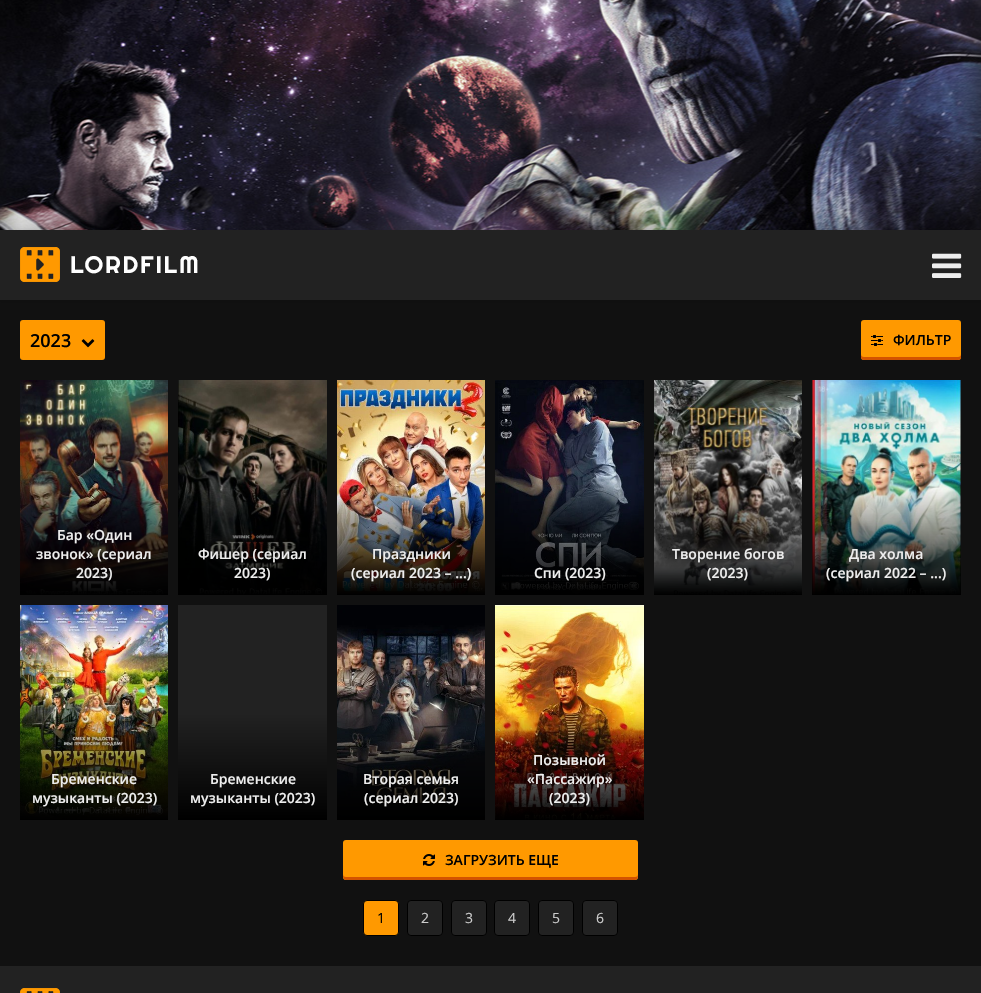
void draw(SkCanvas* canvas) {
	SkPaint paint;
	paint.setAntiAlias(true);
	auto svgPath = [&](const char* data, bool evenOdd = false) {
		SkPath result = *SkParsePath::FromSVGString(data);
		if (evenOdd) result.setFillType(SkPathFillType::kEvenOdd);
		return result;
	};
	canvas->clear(0xffffffff);
	canvas->drawImageRect(SkImages::DeferredFromEncodedData(SkData::MakeFromFileName("img1.png")), SkRect::MakeXYWH(0, 0, 981, 230), SkSamplingOptions());
	paint.setColor(0x80000000);
	paint.setMaskFilter(SkMaskFilter::MakeBlur(kNormal_SkBlurStyle, 30));
	canvas->drawRect(SkRect::MakeXYWH(0, 230, 981, 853), paint);
	paint.setMaskFilter(nullptr);
	paint.setColor(0xff111111);
	canvas->drawRect(SkRect::MakeXYWH(0, 300, 981, 666), paint);
	paint.setColor(0x26000000);
	paint.setMaskFilter(SkMaskFilter::MakeBlur(kNormal_SkBlurStyle, 2.5));
	canvas->drawRect(SkRect::MakeXYWH(0, 231, 981, 70), paint);
	paint.setMaskFilter(nullptr);
	paint.setColor(0xff222222);
	canvas->drawRect(SkRect::MakeXYWH(0, 230, 981, 70), paint);
	canvas->drawImageRect(SkImages::DeferredFromEncodedData(SkData::MakeFromFileName("img2.png")), SkRect::MakeXYWH(20, 247, 178, 35), SkSamplingOptions());
	canvas->drawImageRect(SkImages::DeferredFromEncodedData(SkData::MakeFromFileName("img3.png")), SkRect::MakeXYWH(932, 253, 30, 25), SkSamplingOptions());
	paint.setColor(0xffff9900);
	canvas->drawRoundRect(SkRect::MakeXYWH(20, 320, 85, 40), 3, 3, paint);
	SkFont f1(fontMgr->matchFamilyStyle("Open Sans", SkFontStyle(600, SkFontStyle::kNormal_Width, SkFontStyle::kUpright_Slant)), 18);
	f1.setSubpixel(true);
	paint.setColor(0xff000000);
	canvas->drawString("2023", 30, 347, f1, paint);
	canvas->drawImageRect(SkImages::DeferredFromEncodedData(SkData::MakeFromFileName("img4.png")), SkRect::MakeXYWH(81, 339, 14, 9), SkSamplingOptions());
	paint.setColor(0xffff9900);
	canvas->drawRoundRect(SkRect::MakeXYWH(861, 320, 100, 40), 3, 3, paint);
	paint.setColor(0xffd35400);
	canvas->drawPath(svgPath("M861 354V357C861 359 862 360 864 360H958C960 360 961 359 961 357V354C961 356 960 357 958 357H864C862 357 861 356 861 354Z"), paint);
	canvas->drawImageRect(SkImages::DeferredFromEncodedData(SkData::MakeFromFileName("img5.png")), SkRect::MakeXYWH(871, 335, 12, 11), SkSamplingOptions());
	SkFont f2(fontMgr->matchFamilyStyle("Open Sans", SkFontStyle(600, SkFontStyle::kNormal_Width, SkFontStyle::kUpright_Slant)), 14);
	f2.setSubpixel(true);
	paint.setColor(0xff000000);
	canvas->drawString("ФИЛЬТР", 893, 345, f2, paint);
	canvas->drawImageRect(SkImages::DeferredFromEncodedData(SkData::MakeFromFileName("img6.png")), SkRect::MakeXYWH(20, 380, 148, 215), SkSamplingOptions());
	paint.setColor(0xffeeeeee);
	canvas->drawString("Бар «Один", 57, 540, f2, paint);
	canvas->drawString("звонок» (сериал", 36, 559, f2, paint);
	canvas->drawString("2023)", 76, 578, f2, paint);
	canvas->drawImageRect(SkImages::DeferredFromEncodedData(SkData::MakeFromFileName("img7.png")), SkRect::MakeXYWH(178, 380, 149, 215), SkSamplingOptions());
	canvas->drawString("Фишер (сериал", 198, 559, f2, paint);
	canvas->drawString("2023)", 234, 578, f2, paint);
	canvas->drawImageRect(SkImages::DeferredFromEncodedData(SkData::MakeFromFileName("img8.png")), SkRect::MakeXYWH(337, 380, 148, 215), SkSamplingOptions());
	canvas->drawString("Праздники", 372, 559, f2, paint);
	canvas->drawString("(сериал 2023 – ...)", 351, 578, f2, paint);
	canvas->drawImageRect(SkImages::DeferredFromEncodedData(SkData::MakeFromFileName("img9.png")), SkRect::MakeXYWH(495, 380, 149, 215), SkSamplingOptions());
	canvas->drawString("Спи (2023)", 534, 578, f2, paint);
	canvas->drawImageRect(SkImages::DeferredFromEncodedData(SkData::MakeFromFileName("img10.png")), SkRect::MakeXYWH(654, 380, 148, 215), SkSamplingOptions());
	canvas->drawString("Творение богов", 672, 559, f2, paint);
	canvas->drawString("(2023)", 707, 578, f2, paint);
	canvas->drawImageRect(SkImages::DeferredFromEncodedData(SkData::MakeFromFileName("img11.png")), SkRect::MakeXYWH(812, 380, 149, 215), SkSamplingOptions());
	canvas->drawString("Два холма", 849, 559, f2, paint);
	canvas->drawString("(сериал 2022 – ...)", 826, 578, f2, paint);
	canvas->drawImageRect(SkImages::DeferredFromEncodedData(SkData::MakeFromFileName("img12.png")), SkRect::MakeXYWH(20, 605, 148, 215), SkSamplingOptions());
	canvas->drawString("Бременские", 51, 784, f2, paint);
	canvas->drawString("музыканты (2023)", 32, 803, f2, paint);
	paint.setColor(0xff222222);
	canvas->drawRect(SkRect::MakeXYWH(178, 605, 149, 108), paint);
	{
		const SkColor colors[] = {0xff222222, 0xff000000};
		const float stops[] = {0, 1};
		const SkPoint ends[] = {{253, 713}, {253, 820}};
		paint.setShader(SkGradientShader::MakeLinear(ends, colors, stops, 2, SkTileMode::kClamp));
		paint.setAlpha(255);
	}
	canvas->drawRect(SkRect::MakeXYWH(178, 713, 149, 107), paint);
	paint.setShader(nullptr);
	paint.setColor(0xffeeeeee);
	canvas->drawString("Бременские", 210, 784, f2, paint);
	canvas->drawString("музыканты (2023)", 190, 803, f2, paint);
	canvas->drawImageRect(SkImages::DeferredFromEncodedData(SkData::MakeFromFileName("img13.png")), SkRect::MakeXYWH(337, 605, 148, 215), SkSamplingOptions());
	canvas->drawString("Вторая семья", 363, 784, f2, paint);
	canvas->drawString("(сериал 2023)", 364, 803, f2, paint);
	canvas->drawImageRect(SkImages::DeferredFromEncodedData(SkData::MakeFromFileName("img14.png")), SkRect::MakeXYWH(495, 605, 149, 215), SkSamplingOptions());
	canvas->drawString("Позывной", 533, 765, f2, paint);
	canvas->drawString("«Пассажир»", 527, 784, f2, paint);
	canvas->drawString("(2023)", 549, 803, f2, paint);
	paint.setColor(0xffff9900);
	canvas->drawRoundRect(SkRect::MakeXYWH(343, 840, 295, 40), 3, 3, paint);
	paint.setColor(0xffd35400);
	canvas->drawPath(svgPath("M343 874C343 876 343 880 346 880H635C638 880 638 876 638 874C638 876 637 877 635 877H346C344 877 343 876 343 874Z"), paint);
	canvas->drawImageRect(SkImages::DeferredFromEncodedData(SkData::MakeFromFileName("img15.png")), SkRect::MakeXYWH(423, 854, 12, 12), SkSamplingOptions());
	paint.setColor(0xff000000);
	canvas->drawString("ЗАГРУЗИТЬ ЕЩЕ", 445, 865, f2, paint);
	paint.setColor(0xffff9900);
	canvas->drawRoundRect(SkRect::MakeXYWH(363.5, 900.5, 35, 35), 3.5, 3.5, paint);
	paint.setStroke(true);
	paint.setStrokeWidth(1);
	paint.setColor(0xff000000);
	canvas->drawRoundRect(SkRect::MakeXYWH(363.5, 900.5, 35, 35), 3.5, 3.5, paint);
	SkFont f3(fontMgr->matchFamilyStyle("Open Sans", SkFontStyle::Normal()), 14);
	f3.setSubpixel(true);
	paint.setStroke(false);
	canvas->drawString("1", 377, 923, f3, paint);
	paint.setColor(0xff222222);
	canvas->drawRoundRect(SkRect::MakeXYWH(407.5, 900.5, 35, 35), 3.5, 3.5, paint);
	paint.setStroke(true);
	paint.setColor(0xff000000);
	canvas->drawRoundRect(SkRect::MakeXYWH(407.5, 900.5, 35, 35), 3.5, 3.5, paint);
	paint.setStroke(false);
	paint.setColor(0xffcccccc);
	canvas->drawString("2", 421, 923, f3, paint);
	paint.setColor(0xff222222);
	canvas->drawRoundRect(SkRect::MakeXYWH(451.5, 900.5, 35, 35), 3.5, 3.5, paint);
	paint.setStroke(true);
	paint.setColor(0xff000000);
	canvas->drawRoundRect(SkRect::MakeXYWH(451.5, 900.5, 35, 35), 3.5, 3.5, paint);
	paint.setStroke(false);
	paint.setColor(0xffcccccc);
	canvas->drawString("3", 465, 923, f3, paint);
	paint.setColor(0xff222222);
	canvas->drawRoundRect(SkRect::MakeXYWH(494.5, 900.5, 35, 35), 3.5, 3.5, paint);
	paint.setStroke(true);
	paint.setColor(0xff000000);
	canvas->drawRoundRect(SkRect::MakeXYWH(494.5, 900.5, 35, 35), 3.5, 3.5, paint);
	paint.setStroke(false);
	paint.setColor(0xffcccccc);
	canvas->drawString("4", 508, 923, f3, paint);
	paint.setColor(0xff222222);
	canvas->drawRoundRect(SkRect::MakeXYWH(538.5, 900.5, 35, 35), 3.5, 3.5, paint);
	paint.setStroke(true);
	paint.setColor(0xff000000);
	canvas->drawRoundRect(SkRect::MakeXYWH(538.5, 900.5, 35, 35), 3.5, 3.5, paint);
	paint.setStroke(false);
	paint.setColor(0xffcccccc);
	canvas->drawString("5", 552, 923, f3, paint);
	paint.setColor(0xff222222);
	canvas->drawRoundRect(SkRect::MakeXYWH(582.5, 900.5, 35, 35), 3.5, 3.5, paint);
	paint.setStroke(true);
	paint.setColor(0xff000000);
	canvas->drawRoundRect(SkRect::MakeXYWH(582.5, 900.5, 35, 35), 3.5, 3.5, paint);
	paint.setStroke(false);
	paint.setColor(0xffcccccc);
	canvas->drawString("6", 596, 923, f3, paint);
	paint.setColor(0xff222222);
	canvas->drawRect(SkRect::MakeXYWH(0, 966, 981, 27), paint);
	canvas->drawImageRect(SkImages::DeferredFromEncodedData(SkData::MakeFromFileName("img16.png")), SkRect::MakeXYWH(20, 988, 40, 5), SkSamplingOptions());
}
